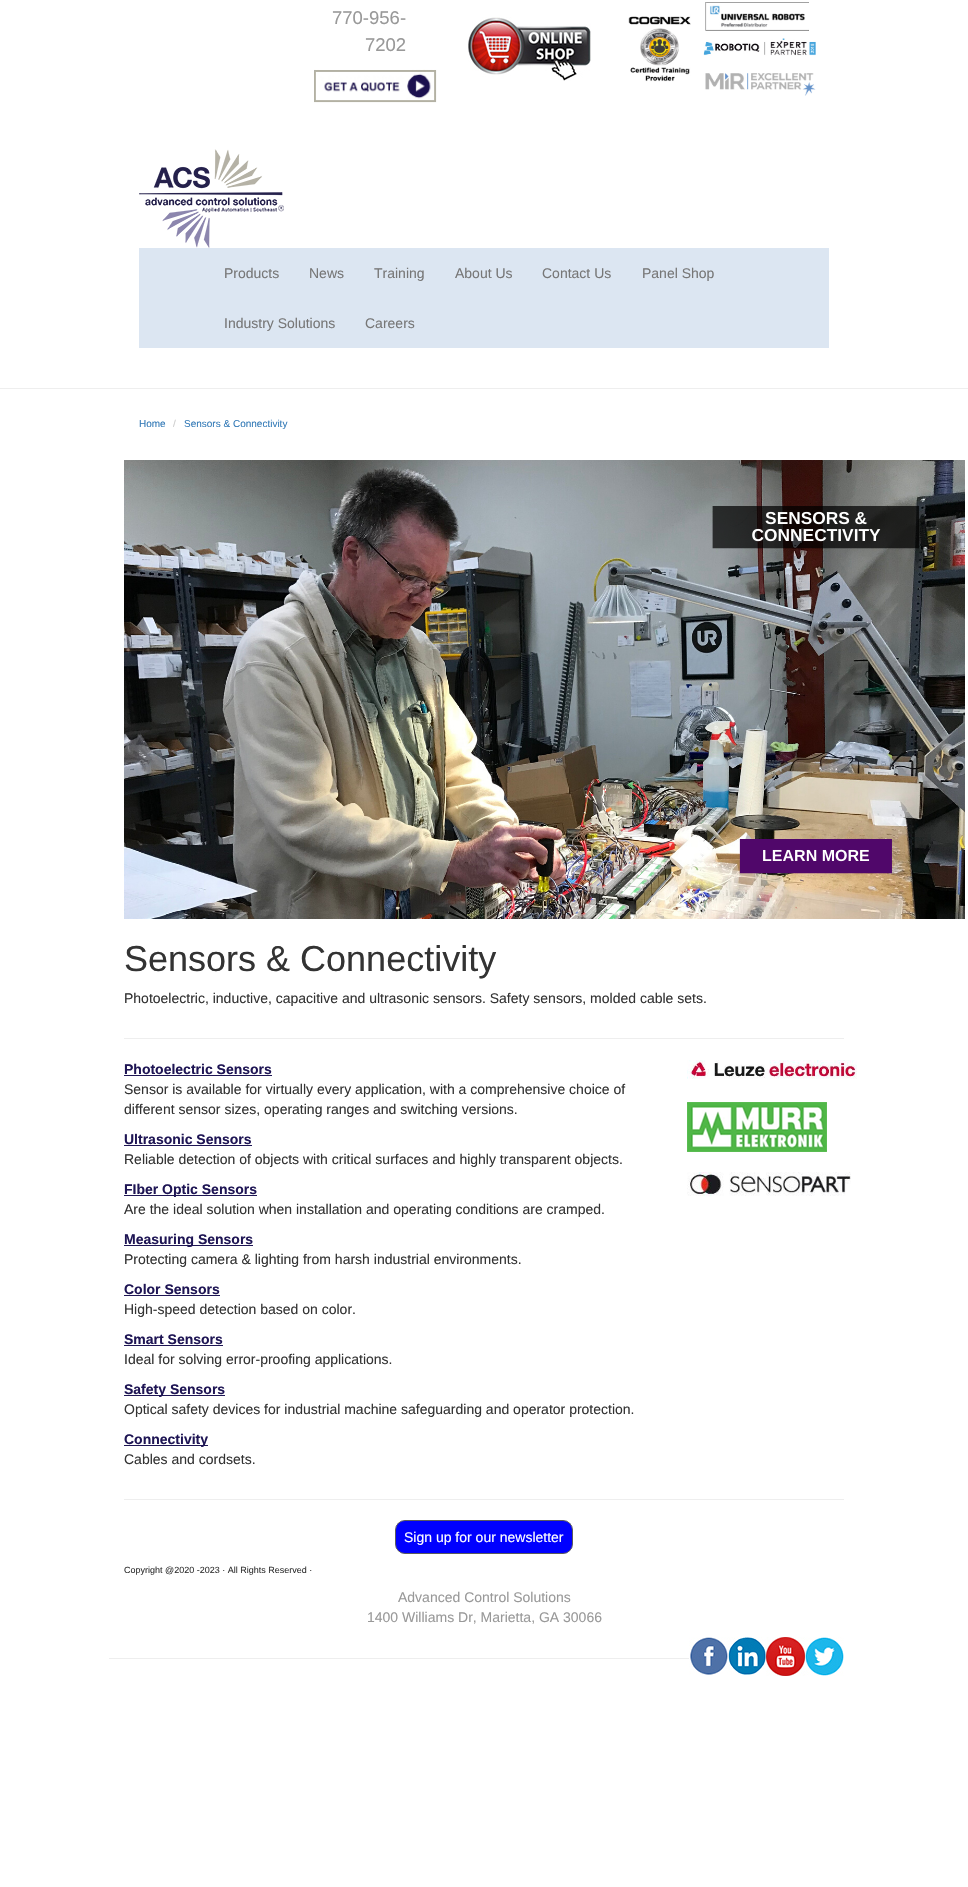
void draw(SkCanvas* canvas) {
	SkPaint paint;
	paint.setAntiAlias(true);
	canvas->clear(0xffffffff);
	SkFont f1(fontMgr->matchFamilyStyle("Liberation Sans", SkFontStyle::Normal()), 18.5);
	f1.setSubpixel(true);
	paint.setColor(0xff999999);
	canvas->drawString("770-956-", 332, 24, f1, paint);
	canvas->drawString("7202", 365, 51, f1, paint);
	canvas->drawImageRect(SkImages::DeferredFromEncodedData(SkData::MakeFromFileName("img1.png")), SkRect::MakeXYWH(314, 69, 123, 34), SkSamplingOptions());
	canvas->drawImageRect(SkImages::DeferredFromEncodedData(SkData::MakeFromFileName("img2.png")), SkRect::MakeXYWH(468, 17, 123, 64), SkSamplingOptions());
	canvas->drawImageRect(SkImages::DeferredFromEncodedData(SkData::MakeFromFileName("img3.png")), SkRect::MakeXYWH(628, 2, 188, 94), SkSamplingOptions());
	canvas->drawImageRect(SkImages::DeferredFromEncodedData(SkData::MakeFromFileName("img4.png")), SkRect::MakeXYWH(139, 149, 145, 99), SkSamplingOptions());
	paint.setColor(0xffdce6f2);
	canvas->drawRect(SkRect::MakeXYWH(139, 248, 690, 100), paint);
	SkFont f2(fontMgr->matchFamilyStyle("Liberation Sans", SkFontStyle::Normal()), 14);
	f2.setSubpixel(true);
	paint.setColor(0xff777777);
	canvas->drawString("Products", 224, 278, f2, paint);
	canvas->drawString("News", 309, 278, f2, paint);
	canvas->drawString("Training", 374, 278, f2, paint);
	canvas->drawString("About Us", 455, 278, f2, paint);
	canvas->drawString("Contact Us", 542, 278, f2, paint);
	canvas->drawString("Panel Shop", 642, 278, f2, paint);
	canvas->drawString("Industry Solutions", 224, 328, f2, paint);
	canvas->drawString("Careers", 365, 328, f2, paint);
	paint.setColor(0xffeeeeee);
	canvas->drawRect(SkRect::MakeXYWH(0, 388, 968, 1), paint);
	SkFont f3(fontMgr->matchFamilyStyle("Liberation Sans", SkFontStyle::Normal()), 10);
	f3.setSubpixel(true);
	paint.setColor(0xff337ab7);
	canvas->drawString("Home", 139, 427, f3, paint);
	paint.setColor(0xffcccccc);
	canvas->drawString("/", 173, 427, f3, paint);
	paint.setColor(0xff337ab7);
	canvas->drawString("Sensors & Connectivity", 184, 427, f3, paint);
	canvas->drawImageRect(SkImages::DeferredFromEncodedData(SkData::MakeFromFileName("img5.png")), SkRect::MakeXYWH(124, 460, 841, 459), SkSamplingOptions());
	SkFont f4(fontMgr->matchFamilyStyle("Liberation Sans", SkFontStyle::Normal()), 36);
	f4.setSubpixel(true);
	paint.setColor(0xff333333);
	canvas->drawString("Sensors & Connectivity", 124, 971, f4, paint);
	canvas->drawString("Photoelectric, inductive, capacitive and ultrasonic sensors. Safety sensors, molded cable sets.", 124, 1003, f2, paint);
	paint.setColor(0xffeeeeee);
	canvas->drawRect(SkRect::MakeXYWH(124, 1038, 720, 1), paint);
	SkFont f5(fontMgr->matchFamilyStyle("Liberation Sans", SkFontStyle::Bold()), 14);
	f5.setSubpixel(true);
	paint.setColor(0xff1e1554);
	canvas->drawString("Photoelectric Sensors", 124, 1074, f5, paint);
	canvas->drawRect(SkRect::MakeXYWH(124, 1075, 148, 1), paint);
	paint.setColor(0xff333333);
	canvas->drawString("Sensor is available for virtually every application, with a comprehensive choice of", 124, 1094, f2, paint);
	canvas->drawString("different sensor sizes, operating ranges and switching versions.", 124, 1114, f2, paint);
	paint.setColor(0xff1e1554);
	canvas->drawString("Ultrasonic Sensors", 124, 1144, f5, paint);
	canvas->drawRect(SkRect::MakeXYWH(124, 1145, 128, 1), paint);
	paint.setColor(0xff333333);
	canvas->drawString("Reliable detection of objects with critical surfaces and highly transparent objects.", 124, 1164, f2, paint);
	paint.setColor(0xff1e1554);
	canvas->drawRect(SkRect::MakeXYWH(124, 1195, 133, 1), paint);
	canvas->drawString("FIber Optic Sensors", 124, 1194, f5, paint);
	paint.setColor(0xff333333);
	canvas->drawString("Are the ideal solution when installation and operating conditions are cramped.", 124, 1214, f2, paint);
	paint.setColor(0xff1e1554);
	canvas->drawRect(SkRect::MakeXYWH(124, 1245, 129, 1), paint);
	canvas->drawString("Measuring Sensors", 124, 1244, f5, paint);
	paint.setColor(0xff333333);
	canvas->drawString("Protecting camera & lighting from harsh industrial environments.", 124, 1264, f2, paint);
	paint.setColor(0xff1e1554);
	canvas->drawString("Color Sensors", 124, 1294, f5, paint);
	canvas->drawRect(SkRect::MakeXYWH(124, 1295, 96, 1), paint);
	paint.setColor(0xff333333);
	canvas->drawString("High-speed detection based on color.", 124, 1314, f2, paint);
	paint.setColor(0xff1e1554);
	canvas->drawString("Smart Sensors", 124, 1344, f5, paint);
	canvas->drawRect(SkRect::MakeXYWH(124, 1345, 99, 1), paint);
	paint.setColor(0xff333333);
	canvas->drawString("Ideal for solving error-proofing applications.", 124, 1364, f2, paint);
	paint.setColor(0xff1e1554);
	canvas->drawRect(SkRect::MakeXYWH(124, 1395, 101, 1), paint);
	canvas->drawString("Safety Sensors", 124, 1394, f5, paint);
	paint.setColor(0xff333333);
	canvas->drawString("Optical safety devices for industrial machine safeguarding and operator protection.", 124, 1414, f2, paint);
	paint.setColor(0xff1e1554);
	canvas->drawRect(SkRect::MakeXYWH(124, 1445, 84, 1), paint);
	canvas->drawString("Connectivity", 124, 1444, f5, paint);
	paint.setColor(0xff333333);
	canvas->drawString("Cables and cordsets.", 124, 1464, f2, paint);
	canvas->drawImageRect(SkImages::DeferredFromEncodedData(SkData::MakeFromFileName("img6.png")), SkRect::MakeXYWH(687, 1060, 170, 19), SkSamplingOptions());
	canvas->drawImageRect(SkImages::DeferredFromEncodedData(SkData::MakeFromFileName("img7.png")), SkRect::MakeXYWH(687, 1102, 140, 50), SkSamplingOptions());
	canvas->drawImageRect(SkImages::DeferredFromEncodedData(SkData::MakeFromFileName("img8.png")), SkRect::MakeXYWH(687, 1172, 164, 25), SkSamplingOptions());
	paint.setColor(0xffeeeeee);
	canvas->drawRect(SkRect::MakeXYWH(124, 1499, 720, 1), paint);
	paint.setColor(0xff0000ff);
	canvas->drawRoundRect(SkRect::MakeXYWH(395.5, 1520.5, 177, 33), 9.5, 9.5, paint);
	paint.setStroke(true);
	paint.setStrokeWidth(1);
	paint.setColor(0xff5b5b5b);
	canvas->drawRoundRect(SkRect::MakeXYWH(395.5, 1520.5, 177, 33), 9.5, 9.5, paint);
	paint.setStroke(false);
	paint.setColor(0xffffffff);
	canvas->drawString("Sign up for our newsletter", 404, 1542, f2, paint);
	SkFont f6(fontMgr->matchFamilyStyle("Liberation Sans", SkFontStyle::Normal()), 9);
	f6.setSubpixel(true);
	paint.setColor(0xff333333);
	canvas->drawString("Copyright @2020 -2023 · All Rights Reserved ·", 124, 1573, f6, paint);
	paint.setColor(0xff999999);
	canvas->drawString("Advanced Control Solutions", 398, 1602, f2, paint);
	canvas->drawString("1400 Williams Dr, Marietta, GA 30066", 367, 1622, f2, paint);
	paint.setColor(0xffeeeeee);
	canvas->drawRect(SkRect::MakeXYWH(109, 1658, 580, 1), paint);
	canvas->drawImageRect(SkImages::DeferredFromEncodedData(SkData::MakeFromFileName("img9.png")), SkRect::MakeXYWH(689, 1637, 39, 38), SkSamplingOptions());
	canvas->drawImageRect(SkImages::DeferredFromEncodedData(SkData::MakeFromFileName("img10.png")), SkRect::MakeXYWH(728, 1637, 38, 38), SkSamplingOptions());
	canvas->drawImageRect(SkImages::DeferredFromEncodedData(SkData::MakeFromFileName("img11.png")), SkRect::MakeXYWH(766, 1637, 39, 39), SkSamplingOptions());
	canvas->drawImageRect(SkImages::DeferredFromEncodedData(SkData::MakeFromFileName("img12.png")), SkRect::MakeXYWH(805, 1637, 39, 39), SkSamplingOptions());
}
